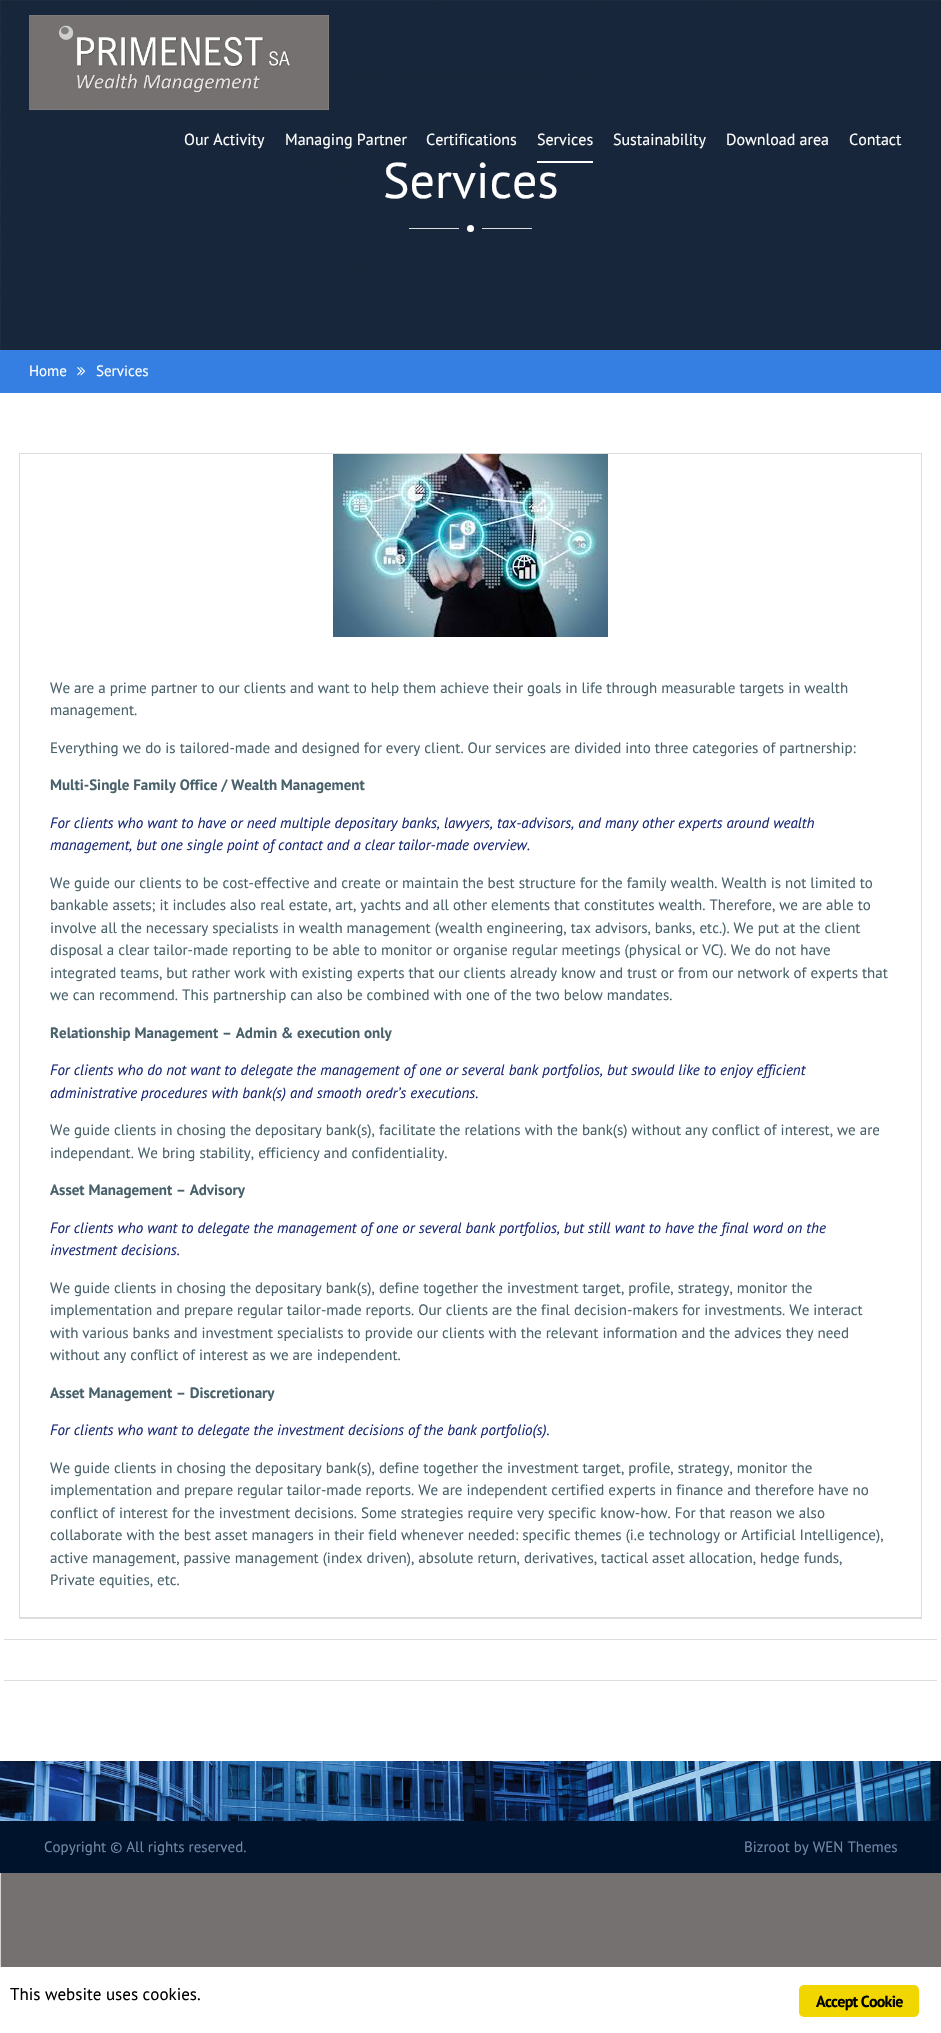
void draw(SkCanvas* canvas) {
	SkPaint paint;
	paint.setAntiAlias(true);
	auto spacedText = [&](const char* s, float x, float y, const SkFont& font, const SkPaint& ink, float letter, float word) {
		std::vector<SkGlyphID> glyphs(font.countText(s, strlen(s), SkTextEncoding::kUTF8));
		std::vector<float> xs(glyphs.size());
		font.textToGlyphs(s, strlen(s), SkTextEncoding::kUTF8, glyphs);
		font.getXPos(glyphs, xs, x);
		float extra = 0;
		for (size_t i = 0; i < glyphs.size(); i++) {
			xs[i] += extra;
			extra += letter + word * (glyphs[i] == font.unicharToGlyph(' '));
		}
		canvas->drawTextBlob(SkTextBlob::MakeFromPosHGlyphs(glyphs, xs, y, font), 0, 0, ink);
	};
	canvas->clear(0xffffffff);
	canvas->drawImageRect(SkImages::DeferredFromEncodedData(SkData::MakeFromFileName("img1.png")), SkRect::MakeXYWH(0, 1873, 941, 94), SkSamplingOptions());
	canvas->drawImageRect(SkImages::DeferredFromEncodedData(SkData::MakeFromFileName("img3.png")), SkRect::MakeXYWH(0, 0, 941, 350), SkSamplingOptions());
	canvas->drawImageRect(SkImages::DeferredFromEncodedData(SkData::MakeFromFileName("img2.png")), SkRect::MakeXYWH(29, 15, 300, 95), SkSamplingOptions());
	SkFont f1(fontMgr->matchFamilyStyle("PT Sans", SkFontStyle::Normal()), 16);
	f1.setSubpixel(true);
	paint.setColor(0xffffffff);
	canvas->drawString("Our Activity", 184, 145, f1, paint);
	canvas->drawString("Managing Partner", 285, 145, f1, paint);
	canvas->drawString("Certifications", 426, 145, f1, paint);
	canvas->drawRect(SkRect::MakeXYWH(537, 161, 56, 2), paint);
	canvas->drawString("Services", 537, 145, f1, paint);
	canvas->drawString("Sustainability", 613, 145, f1, paint);
	canvas->drawString("Download area", 726, 145, f1, paint);
	canvas->drawString("Contact", 849, 145, f1, paint);
	SkFont f2(fontMgr->matchFamilyStyle("PT Sans", SkFontStyle::Normal()), 50);
	f2.setSubpixel(true);
	canvas->drawString("Services", 383, 198, f2, paint);
	canvas->drawCircle(470.5, 228.5, 3.5, paint);
	paint.setColor(0xffdddddd);
	canvas->drawRect(SkRect::MakeXYWH(409, 228, 50, 1), paint);
	canvas->drawRect(SkRect::MakeXYWH(482, 228, 50, 1), paint);
	paint.setColor(0xff347fe1);
	canvas->drawRect(SkRect::MakeXYWH(0, 350, 941, 43), paint);
	SkFont f3(fontMgr->matchFamilyStyle("PT Sans", SkFontStyle::Normal()), 15);
	f3.setSubpixel(true);
	paint.setColor(0xffffffff);
	canvas->drawString("Home", 29, 376, f3, paint);
	canvas->drawImageRect(SkImages::DeferredFromEncodedData(SkData::MakeFromFileName("img4.png")), SkRect::MakeXYWH(77, 367, 9, 9), SkSamplingOptions());
	canvas->drawString("Services", 96, 376, f3, paint);
	paint.setColor(0xffdddddd);
	canvas->drawRect(SkRect::MakeXYWH(4, 1639, 933, 1), paint);
	paint.setStroke(true);
	paint.setStrokeWidth(1);
	canvas->drawRect(SkRect::MakeXYWH(19.5, 453.5, 902, 1165), paint);
	canvas->drawImageRect(SkImages::DeferredFromEncodedData(SkData::MakeFromFileName("img5.png")), SkRect::MakeXYWH(333, 454, 275, 183), SkSamplingOptions());
	paint.setStroke(false);
	paint.setColor(0xff49616b);
	canvas->drawString("We are a prime partner to our clients and want to help them achieve their goals in life through measurable targets in wealth", 50, 693, f3, paint);
	canvas->drawString("management.", 50, 715, f3, paint);
	canvas->drawString("Everything we do is tailored-made and designed for every client. Our services are divided into three categories of partnership:", 50, 753, f3, paint);
	SkFont f4(fontMgr->matchFamilyStyle("PT Sans", SkFontStyle::Bold()), 15);
	f4.setSubpixel(true);
	canvas->drawString("Multi-Single Family Office / Wealth Management", 50, 790, f4, paint);
	SkFont f5(fontMgr->matchFamilyStyle("PT Sans", SkFontStyle::Italic()), 15);
	f5.setSubpixel(true);
	paint.setColor(0xff192975);
	canvas->drawString("For clients who want to have or need multiple depositary banks, lawyers, tax-advisors, and many other experts around wealth", 50, 828, f5, paint);
	canvas->drawString("management, but one single point of contact and a clear tailor-made overview.", 50, 850, f5, paint);
	paint.setColor(0xff49616b);
	canvas->drawString("We guide our clients to be cost-effective and create or maintain the best structure for the family wealth. Wealth is not limited to", 50, 888, f3, paint);
	canvas->drawString("bankable assets; it includes also real estate, art, yachts and all other elements that constitutes wealth. Therefore, we are able to", 50, 910, f3, paint);
	canvas->drawString("involve all the necessary specialists in wealth management (wealth engineering, tax advisors, banks, etc.). We put at the client", 50, 933, f3, paint);
	canvas->drawString("disposal a clear tailor-made reporting to be able to monitor or organise regular meetings (physical or VC). We do not have", 50, 955, f3, paint);
	canvas->drawString("integrated teams, but rather work with existing experts that our clients already know and trust or from our network of experts that", 50, 978, f3, paint);
	canvas->drawString("we can recommend. This partnership can also be combined with one of the two below mandates.", 50, 1000, f3, paint);
	canvas->drawString("Relationship Management – Admin & execution only", 50, 1038, f4, paint);
	paint.setColor(0xff192975);
	canvas->drawString("For clients who do not want to delegate the management of one or several bank portfolios, but swould like to enjoy efficient", 50, 1075, f5, paint);
	canvas->drawString("administrative procedures with bank(s) and smooth oredr’s executions.", 50, 1098, f5, paint);
	paint.setColor(0xff49616b);
	canvas->drawString("We guide clients in chosing the depositary bank(s), facilitate the relations with the bank(s) without any conflict of interest, we are", 50, 1135, f3, paint);
	canvas->drawString("independant. We bring stability, efficiency and confidentiality.", 50, 1158, f3, paint);
	canvas->drawString("Asset Management – Advisory", 50, 1195, f4, paint);
	paint.setColor(0xff192975);
	canvas->drawString("For clients who want to delegate the management of one or several bank portfolios, but still want to have the final word on the", 50, 1233, f5, paint);
	canvas->drawString("investment decisions.", 50, 1255, f5, paint);
	paint.setColor(0xff49616b);
	canvas->drawString("We guide clients in chosing the depositary bank(s), define together the investment target, profile, strategy, monitor the", 50, 1293, f3, paint);
	canvas->drawString("implementation and prepare regular tailor-made reports. Our clients are the final decision-makers for investments. We interact", 50, 1315, f3, paint);
	canvas->drawString("with various banks and investment specialists to provide our clients with the relevant information and the advices they need", 50, 1338, f3, paint);
	canvas->drawString("without any conflict of interest as we are independent.", 50, 1360, f3, paint);
	canvas->drawString("Asset Management – Discretionary", 50, 1398, f4, paint);
	paint.setColor(0xff192975);
	canvas->drawString("For clients who want to delegate the investment decisions of the bank portfolio(s).", 50, 1435, f5, paint);
	paint.setColor(0xff49616b);
	canvas->drawString("We guide clients in chosing the depositary bank(s), define together the investment target, profile, strategy, monitor the", 50, 1473, f3, paint);
	canvas->drawString("implementation and prepare regular tailor-made reports. We are independent certified experts in finance and therefore have no", 50, 1495, f3, paint);
	canvas->drawString("conflict of interest for the investment decisions. Some strategies require very specific know-how. For that reason we also", 50, 1518, f3, paint);
	canvas->drawString("collaborate with the best asset managers in their field whenever needed: specific themes (i.e technology or Artificial Intelligence),", 50, 1540, f3, paint);
	canvas->drawString("active management, passive management (index driven), absolute return, derivatives, tactical asset allocation, hedge funds,", 50, 1563, f3, paint);
	canvas->drawString("Private equities, etc.", 50, 1585, f3, paint);
	paint.setColor(0xffdddddd);
	canvas->drawRect(SkRect::MakeXYWH(20, 1617, 901, 1), paint);
	canvas->drawRect(SkRect::MakeXYWH(4, 1680, 933, 1), paint);
	canvas->drawImageRect(SkImages::DeferredFromEncodedData(SkData::MakeFromFileName("img6.png")), SkRect::MakeXYWH(0, 1761, 941, 60), SkSamplingOptions());
	paint.setColor(0xff00132c);
	canvas->drawRect(SkRect::MakeXYWH(0, 1821, 941, 52), paint);
	paint.setColor(0xff7188a7);
	canvas->drawString("Copyright © All rights reserved.", 44, 1852, f3, paint);
	canvas->drawString("Bizroot by WEN Themes", 744, 1852, f3, paint);
	SkFont f6(fontMgr->matchFamilyStyle("PT Sans", SkFontStyle::Normal()), 17);
	f6.setSubpixel(true);
	paint.setColor(0xff000000);
	canvas->drawString("This website uses cookies.", 10, 2000, f6, paint);
	paint.setColor(0xfff1d600);
	canvas->drawRoundRect(SkRect::MakeXYWH(799, 1985, 120, 32), 5, 5, paint);
	SkFont f7(fontMgr->matchFamilyStyle("PT Sans", SkFontStyle::Bold()), 16);
	f7.setSubpixel(true);
	paint.setColor(0xff000000);
	spacedText("Accept Cookie", 816, 2007, f7, paint, -0.75, 0);
}
